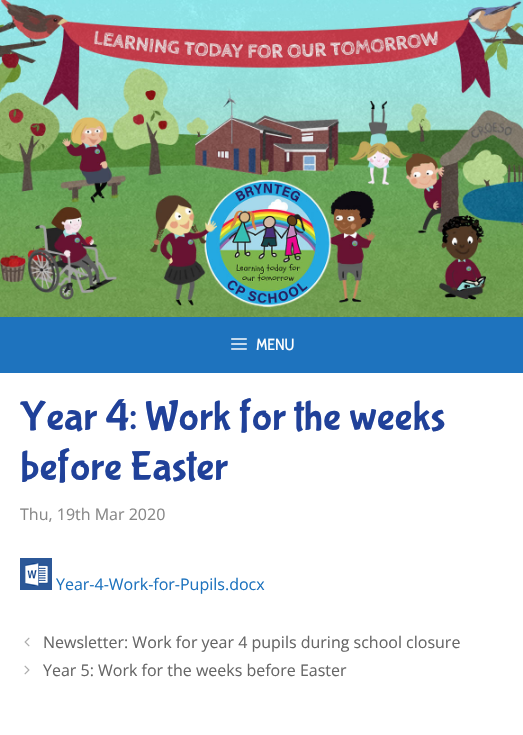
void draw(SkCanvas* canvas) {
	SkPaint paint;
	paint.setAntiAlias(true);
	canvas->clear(0xff1e73be);
	canvas->drawImageRect(SkImages::DeferredFromEncodedData(SkData::MakeFromFileName("img1.png")), SkRect::MakeXYWH(0, 0, 523, 317), SkSamplingOptions());
	canvas->drawImageRect(SkImages::DeferredFromEncodedData(SkData::MakeFromFileName("img2.png")), SkRect::MakeXYWH(231, 338, 16, 12), SkSamplingOptions());
	SkFont f1(fontMgr->matchFamilyStyle("Cabin Condensed", SkFontStyle::Normal()), 16);
	f1.setSubpixel(true);
	paint.setColor(0xffffffff);
	canvas->drawString("MENU", 256, 350, f1, paint);
	canvas->drawRect(SkRect::MakeXYWH(0, 373, 523, 362), paint);
	SkFont f2(fontMgr->matchFamilyStyle("Bubblegum Sans", SkFontStyle::Normal()), 42);
	f2.setSubpixel(true);
	paint.setColor(0xff204199);
	canvas->drawString("Year 4: Work for the weeks", 20, 429, f2, paint);
	canvas->drawString("before Easter", 20, 479, f2, paint);
	SkFont f3(fontMgr->matchFamilyStyle("Open Sans", SkFontStyle::Normal()), 16);
	f3.setSubpixel(true);
	paint.setColor(0xff888888);
	canvas->drawString("Thu, 19th Mar 2020", 20, 520, f3, paint);
	canvas->drawImageRect(SkImages::DeferredFromEncodedData(SkData::MakeFromFileName("img3.png")), SkRect::MakeXYWH(20, 558, 32, 32), SkSamplingOptions());
	paint.setColor(0xff1e73be);
	canvas->drawString("Year-4-Work-for-Pupils.docx", 56, 590, f3, paint);
	canvas->drawImageRect(SkImages::DeferredFromEncodedData(SkData::MakeFromFileName("img4.png")), SkRect::MakeXYWH(24, 637, 6, 10), SkSamplingOptions());
	paint.setColor(0xff666666);
	canvas->drawString("Newsletter: Work for year 4 pupils during school closure", 43, 648, f3, paint);
	canvas->drawImageRect(SkImages::DeferredFromEncodedData(SkData::MakeFromFileName("img5.png")), SkRect::MakeXYWH(24, 665, 6, 10), SkSamplingOptions());
	canvas->drawString("Year 5: Work for the weeks before Easter", 43, 676, f3, paint);
}
